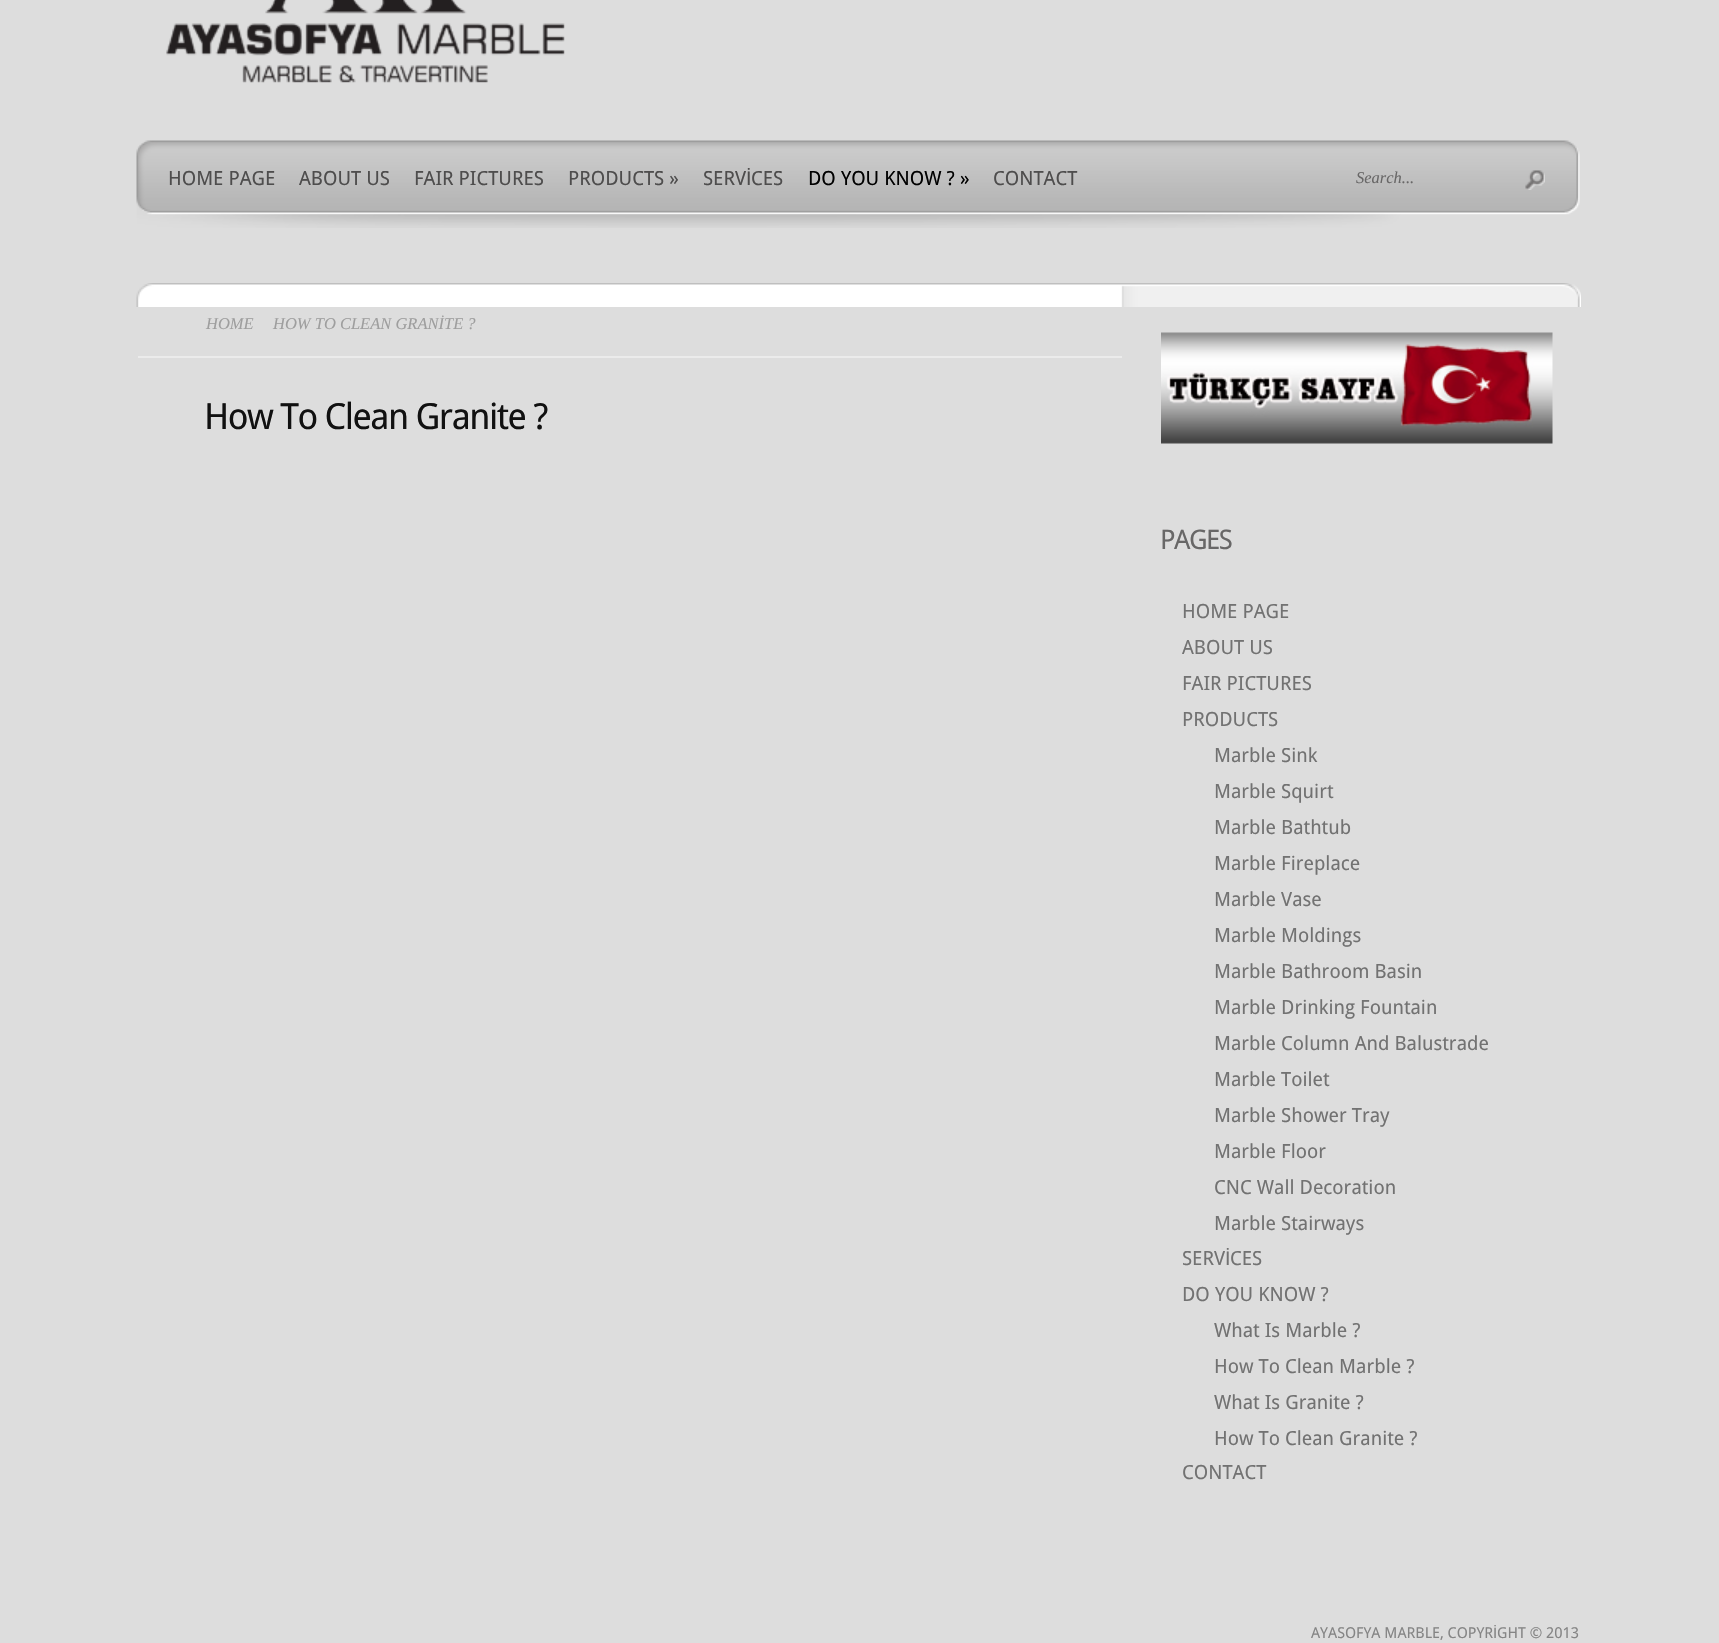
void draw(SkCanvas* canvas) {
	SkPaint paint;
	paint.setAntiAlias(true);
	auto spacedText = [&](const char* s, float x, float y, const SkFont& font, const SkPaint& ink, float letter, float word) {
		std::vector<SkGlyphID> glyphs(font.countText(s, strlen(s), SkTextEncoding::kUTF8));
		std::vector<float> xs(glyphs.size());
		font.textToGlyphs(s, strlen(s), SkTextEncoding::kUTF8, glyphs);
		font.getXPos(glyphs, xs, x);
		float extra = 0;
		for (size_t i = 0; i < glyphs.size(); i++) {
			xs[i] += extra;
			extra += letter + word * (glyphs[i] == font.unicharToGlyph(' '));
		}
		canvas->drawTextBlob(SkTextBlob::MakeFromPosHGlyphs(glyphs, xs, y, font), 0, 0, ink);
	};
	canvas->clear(0xffdddddd);
	canvas->drawImageRect(SkImages::DeferredFromEncodedData(SkData::MakeFromFileName("img1.png")), SkRect::MakeXYWH(166, 0, 399, 83), SkSamplingOptions());
	canvas->drawImageRect(SkImages::DeferredFromEncodedData(SkData::MakeFromFileName("img2.png")), SkRect::MakeXYWH(136, 140, 1444, 88), SkSamplingOptions());
	SkFont f1(fontMgr->matchFamilyStyle("Droid Sans", SkFontStyle::Normal()), 19.5);
	f1.setSubpixel(true);
	paint.setColor(0xff4e4d4d);
	canvas->drawString("HOME PAGE", 168, 185, f1, paint);
	canvas->drawString("ABOUT US", 299, 185, f1, paint);
	canvas->drawString("FAIR PICTURES", 414, 185, f1, paint);
	canvas->drawString("PRODUCTS »", 568, 185, f1, paint);
	canvas->drawString("SERV", 703, 185, f1, paint);
	SkFont f2(fontMgr->matchFamilyStyle("Liberation Sans", SkFontStyle::Normal()), 19.5);
	f2.setSubpixel(true);
	canvas->drawString("İ", 746, 185, f2, paint);
	canvas->drawString("CES", 751, 185, f1, paint);
	paint.setColor(0xff000000);
	canvas->drawString("DO YOU KNOW ? »", 808, 185, f1, paint);
	paint.setColor(0xff4e4d4d);
	canvas->drawString("CONTACT", 993, 185, f1, paint);
	SkFont f3(fontMgr->matchFamilyStyle("Liberation Serif", SkFontStyle::Italic()), 16.5);
	f3.setSubpixel(true);
	paint.setColor(0xff686767);
	canvas->drawString("Search...", 1356, 183, f3, paint);
	canvas->drawImageRect(SkImages::DeferredFromEncodedData(SkData::MakeFromFileName("img3.png")), SkRect::MakeXYWH(1525, 170, 20, 20), SkSamplingOptions());
	canvas->drawImageRect(SkImages::DeferredFromEncodedData(SkData::MakeFromFileName("img4.png")), SkRect::MakeXYWH(136, 283, 1445, 24), SkSamplingOptions());
	paint.setColor(0xffebebeb);
	canvas->drawRect(SkRect::MakeXYWH(138, 356, 984, 2), paint);
	paint.setColor(0xff9e9e9e);
	canvas->drawString("HOME", 206, 329, f3, paint);
	canvas->drawString("HOW TO CLEAN GRANİTE ?", 273, 329, f3, paint);
	SkFont f4(fontMgr->matchFamilyStyle("Droid Sans", SkFontStyle::Normal()), 36);
	f4.setSubpixel(true);
	paint.setColor(0xff111111);
	spacedText("How To Clean Granite ?", 204, 429, f4, paint, -1.5, 0);
	canvas->drawImageRect(SkImages::DeferredFromEncodedData(SkData::MakeFromFileName("img5.png")), SkRect::MakeXYWH(1161, 332, 392, 112), SkSamplingOptions());
	SkFont f5(fontMgr->matchFamilyStyle("Droid Sans", SkFontStyle::Normal()), 27);
	f5.setSubpixel(true);
	paint.setColor(0xff686767);
	spacedText("PAGES", 1160, 549, f5, paint, -1.5, 0);
	paint.setColor(0xff727272);
	canvas->drawString("HOME PAGE", 1182, 618, f1, paint);
	canvas->drawString("ABOUT US", 1182, 654, f1, paint);
	canvas->drawString("FAIR PICTURES", 1182, 690, f1, paint);
	canvas->drawString("PRODUCTS", 1182, 726, f1, paint);
	canvas->drawString("Marble Sink", 1214, 762, f1, paint);
	canvas->drawString("Marble Squirt", 1214, 798, f1, paint);
	canvas->drawString("Marble Bathtub", 1214, 834, f1, paint);
	canvas->drawString("Marble Fireplace", 1214, 870, f1, paint);
	canvas->drawString("Marble Vase", 1214, 906, f1, paint);
	canvas->drawString("Marble Moldings", 1214, 942, f1, paint);
	canvas->drawString("Marble Bathroom Basin", 1214, 978, f1, paint);
	canvas->drawString("Marble Drinking Fountain", 1214, 1014, f1, paint);
	canvas->drawString("Marble Column And Balustrade", 1214, 1050, f1, paint);
	canvas->drawString("Marble Toilet", 1214, 1086, f1, paint);
	canvas->drawString("Marble Shower Tray", 1214, 1122, f1, paint);
	canvas->drawString("Marble Floor", 1214, 1158, f1, paint);
	canvas->drawString("CNC Wall Decoration", 1214, 1194, f1, paint);
	canvas->drawString("Marble Stairways", 1214, 1230, f1, paint);
	canvas->drawString("SERV", 1182, 1265, f1, paint);
	canvas->drawString("İ", 1225, 1265, f2, paint);
	canvas->drawString("CES", 1230, 1265, f1, paint);
	canvas->drawString("DO YOU KNOW ?", 1182, 1301, f1, paint);
	canvas->drawString("What Is Marble ?", 1214, 1337, f1, paint);
	canvas->drawString("How To Clean Marble ?", 1214, 1373, f1, paint);
	canvas->drawString("What Is Granite ?", 1214, 1409, f1, paint);
	canvas->drawString("How To Clean Granite ?", 1214, 1445, f1, paint);
	canvas->drawString("CONTACT", 1182, 1479, f1, paint);
	SkFont f6(fontMgr->matchFamilyStyle("Droid Sans", SkFontStyle::Normal()), 15);
	f6.setSubpixel(true);
	paint.setColor(0xff858585);
	canvas->drawString("AYASOFYA MARBLE, COPYR GHT © 2013", 1311, 1638, f6, paint);
	SkFont f7(fontMgr->matchFamilyStyle("Liberation Sans", SkFontStyle::Normal()), 15);
	f7.setSubpixel(true);
	canvas->drawString("İ", 1493, 1638, f7, paint);
}
